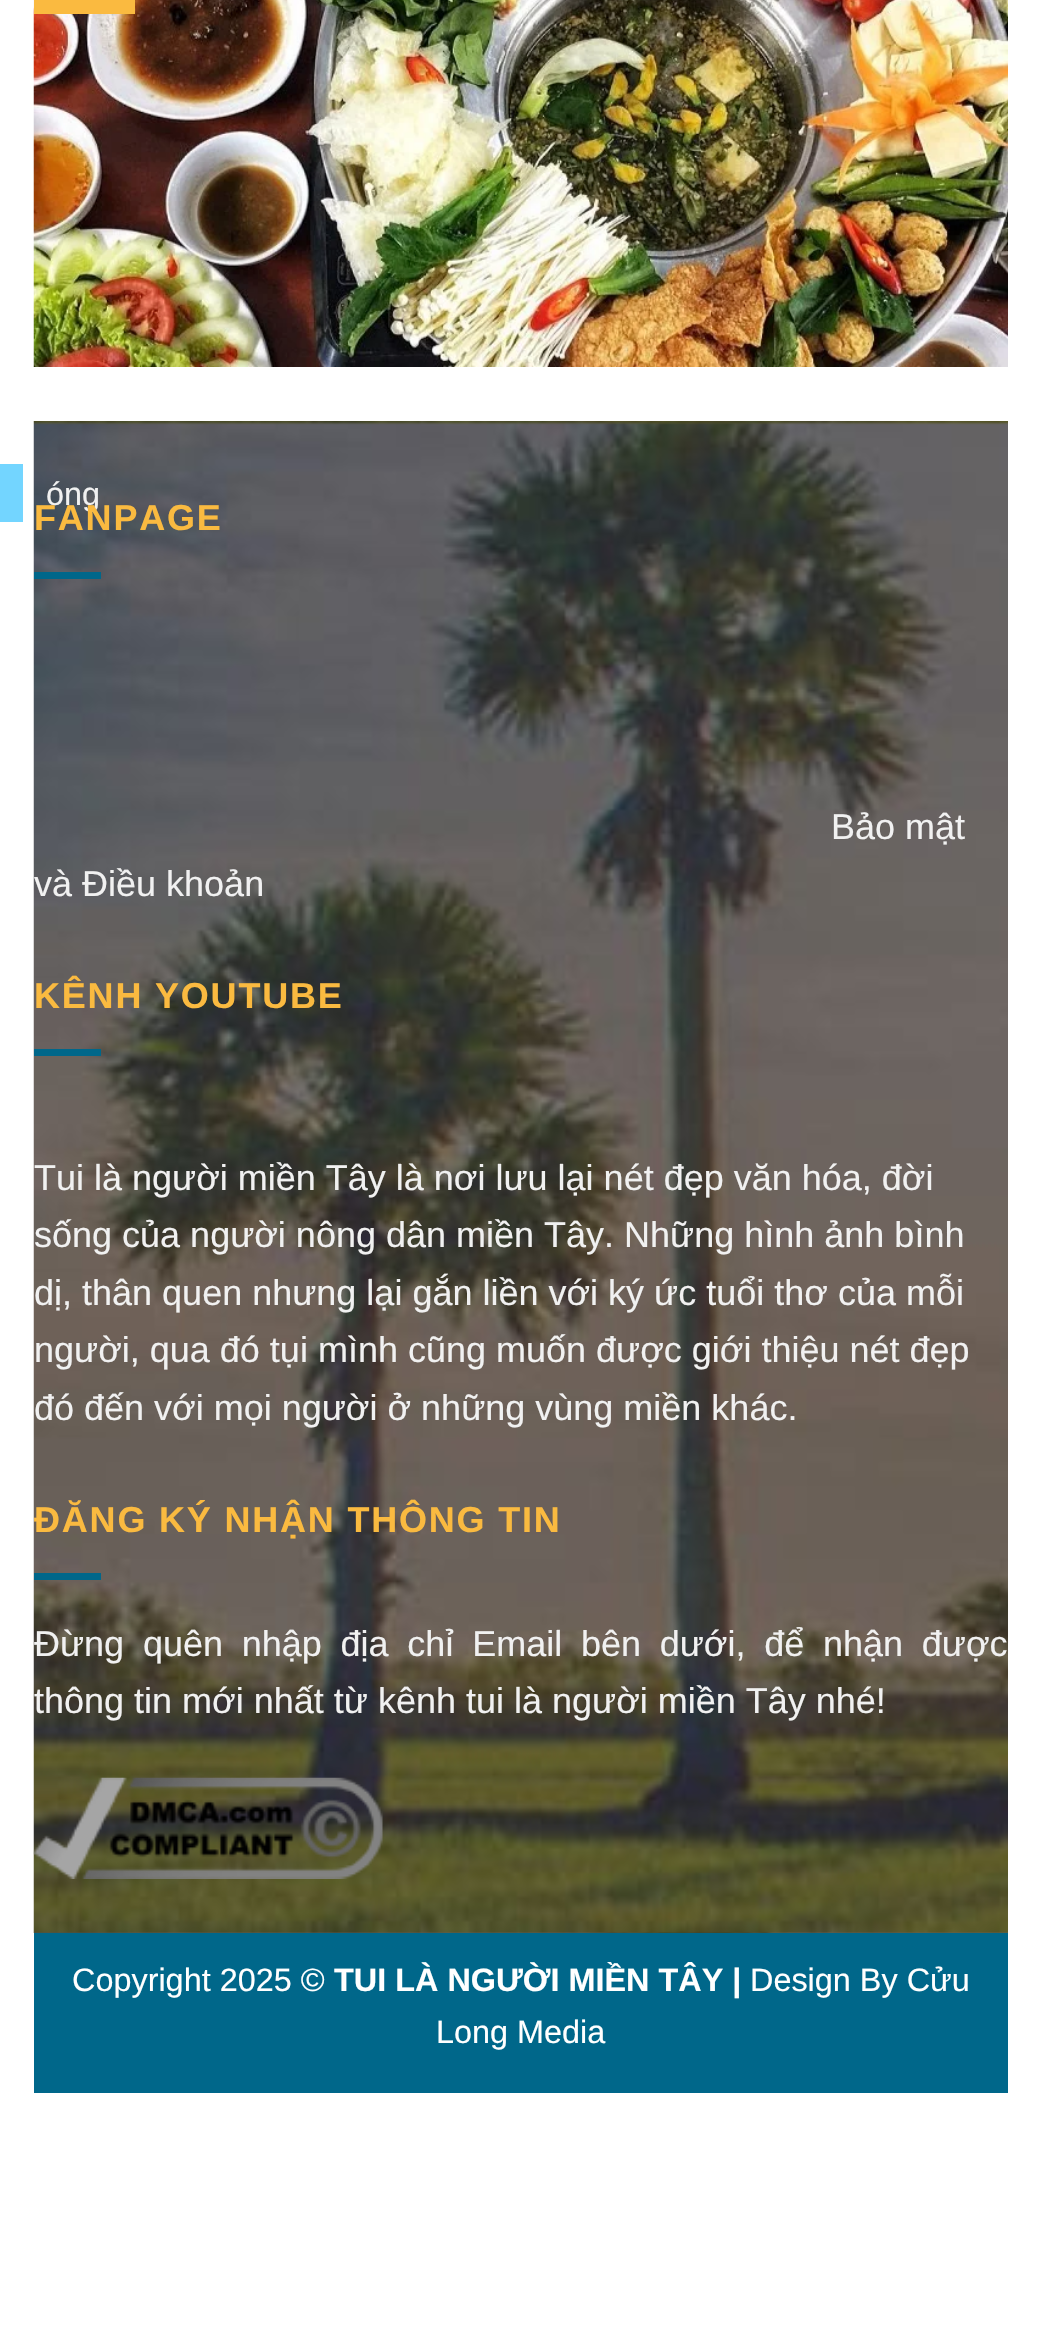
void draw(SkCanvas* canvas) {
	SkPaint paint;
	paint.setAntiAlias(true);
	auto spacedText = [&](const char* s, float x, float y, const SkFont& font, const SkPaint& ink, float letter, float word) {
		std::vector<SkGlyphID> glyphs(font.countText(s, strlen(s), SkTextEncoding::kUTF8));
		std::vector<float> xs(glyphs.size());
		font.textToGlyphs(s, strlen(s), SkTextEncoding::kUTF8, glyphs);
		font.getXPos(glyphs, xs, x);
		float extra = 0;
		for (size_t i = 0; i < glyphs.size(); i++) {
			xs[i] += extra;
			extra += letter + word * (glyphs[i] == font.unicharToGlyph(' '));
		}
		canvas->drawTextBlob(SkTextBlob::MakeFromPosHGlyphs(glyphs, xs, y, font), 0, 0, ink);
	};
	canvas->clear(0xffffffff);
	canvas->drawImageRect(SkImages::DeferredFromEncodedData(SkData::MakeFromFileName("img1.png")), SkRect::MakeXYWH(33, 0, 975, 367), SkSamplingOptions());
	paint.setColor(0xfffaba40);
	canvas->drawRect(SkRect::MakeXYWH(34, 0, 101, 14), paint);
	paint.setColor(0xff00678a);
	canvas->drawRect(SkRect::MakeXYWH(34, 1933, 974, 160), paint);
	paint.setColor(0xff73d5ff);
	canvas->drawRect(SkRect::MakeXYWH(0, 464, 23, 58), paint);
	canvas->drawImageRect(SkImages::DeferredFromEncodedData(SkData::MakeFromFileName("img2.png")), SkRect::MakeXYWH(33, 421, 975, 1512), SkSamplingOptions());
	SkFont f1(fontMgr->matchFamilyStyle("Liberation Sans", SkFontStyle::Normal()), 32.4);
	f1.setSubpixel(true);
	paint.setColor(0xfff1f1f1);
	canvas->drawString("óng", 46, 505, f1, paint);
	paint.setColor(0xffffffff);
	canvas->drawString("Copyright 2025 ©", 72, 1991, f1, paint);
	SkFont f2(fontMgr->matchFamilyStyle("Liberation Sans", SkFontStyle::Bold()), 32.4);
	f2.setSubpixel(true);
	canvas->drawString("TUI LÀ NGƯỜI MIỀN TÂY |", 334, 1991, f2, paint);
	canvas->drawString("Design By Cửu", 750, 1991, f1, paint);
	canvas->drawString("Long Media", 436, 2043, f1, paint);
	paint.setColor(0x0d000000);
	canvas->drawRect(SkRect::MakeXYWH(34, 421, 974, 2), paint);
	SkFont f3(fontMgr->matchFamilyStyle("Liberation Sans", SkFontStyle::Bold()), 36);
	f3.setSubpixel(true);
	paint.setColor(0xfffaba40);
	spacedText("FANPAGE", 34, 530, f3, paint, 1.8, 0);
	paint.setColor(0xff00678a);
	canvas->drawRect(SkRect::MakeXYWH(34, 572, 67, 7), paint);
	SkFont f4(fontMgr->matchFamilyStyle("Liberation Sans", SkFontStyle::Normal()), 36);
	f4.setSubpixel(true);
	paint.setColor(0xfff1f1f1);
	canvas->drawString("Bảo mật", 831, 839, f4, paint);
	canvas->drawString("và Điều khoản", 34, 896, f4, paint);
	paint.setColor(0xfffaba40);
	spacedText("KÊNH YOUTUBE", 34, 1008, f3, paint, 1.8, 0);
	paint.setColor(0xff00678a);
	canvas->drawRect(SkRect::MakeXYWH(34, 1049, 67, 7), paint);
	paint.setColor(0xfff1f1f1);
	canvas->drawString("Tui là người miền Tây là nơi lưu lại nét đẹp văn hóa, đời", 34, 1190, f4, paint);
	canvas->drawString("sống của người nông dân miền Tây. Những hình ảnh bình", 34, 1247, f4, paint);
	canvas->drawString("dị, thân quen nhưng lại gắn liền với ký ức tuổi thơ của mỗi", 34, 1305, f4, paint);
	canvas->drawString("người, qua đó tụi mình cũng muốn được giới thiệu nét đẹp", 34, 1362, f4, paint);
	canvas->drawString("đó đến với mọi người ở những vùng miền khác.", 34, 1420, f4, paint);
	paint.setColor(0xfffaba40);
	spacedText("ĐĂNG KÝ NHẬN THÔNG TIN", 34, 1532, f3, paint, 1.8, 0);
	paint.setColor(0xff00678a);
	canvas->drawRect(SkRect::MakeXYWH(34, 1573, 67, 7), paint);
	paint.setColor(0xfff1f1f1);
	spacedText("Đừng quên nhập địa chỉ Email bên dưới, để nhận được", 34, 1656, f4, paint, 0, 8.75);
	canvas->drawString("thông tin mới nhất từ kênh tui là người miền Tây nhé!", 34, 1713, f4, paint);
	canvas->drawImageRect(SkImages::DeferredFromEncodedData(SkData::MakeFromFileName("img3.png")), SkRect::MakeXYWH(33, 1777, 350, 102), SkSamplingOptions());
}
